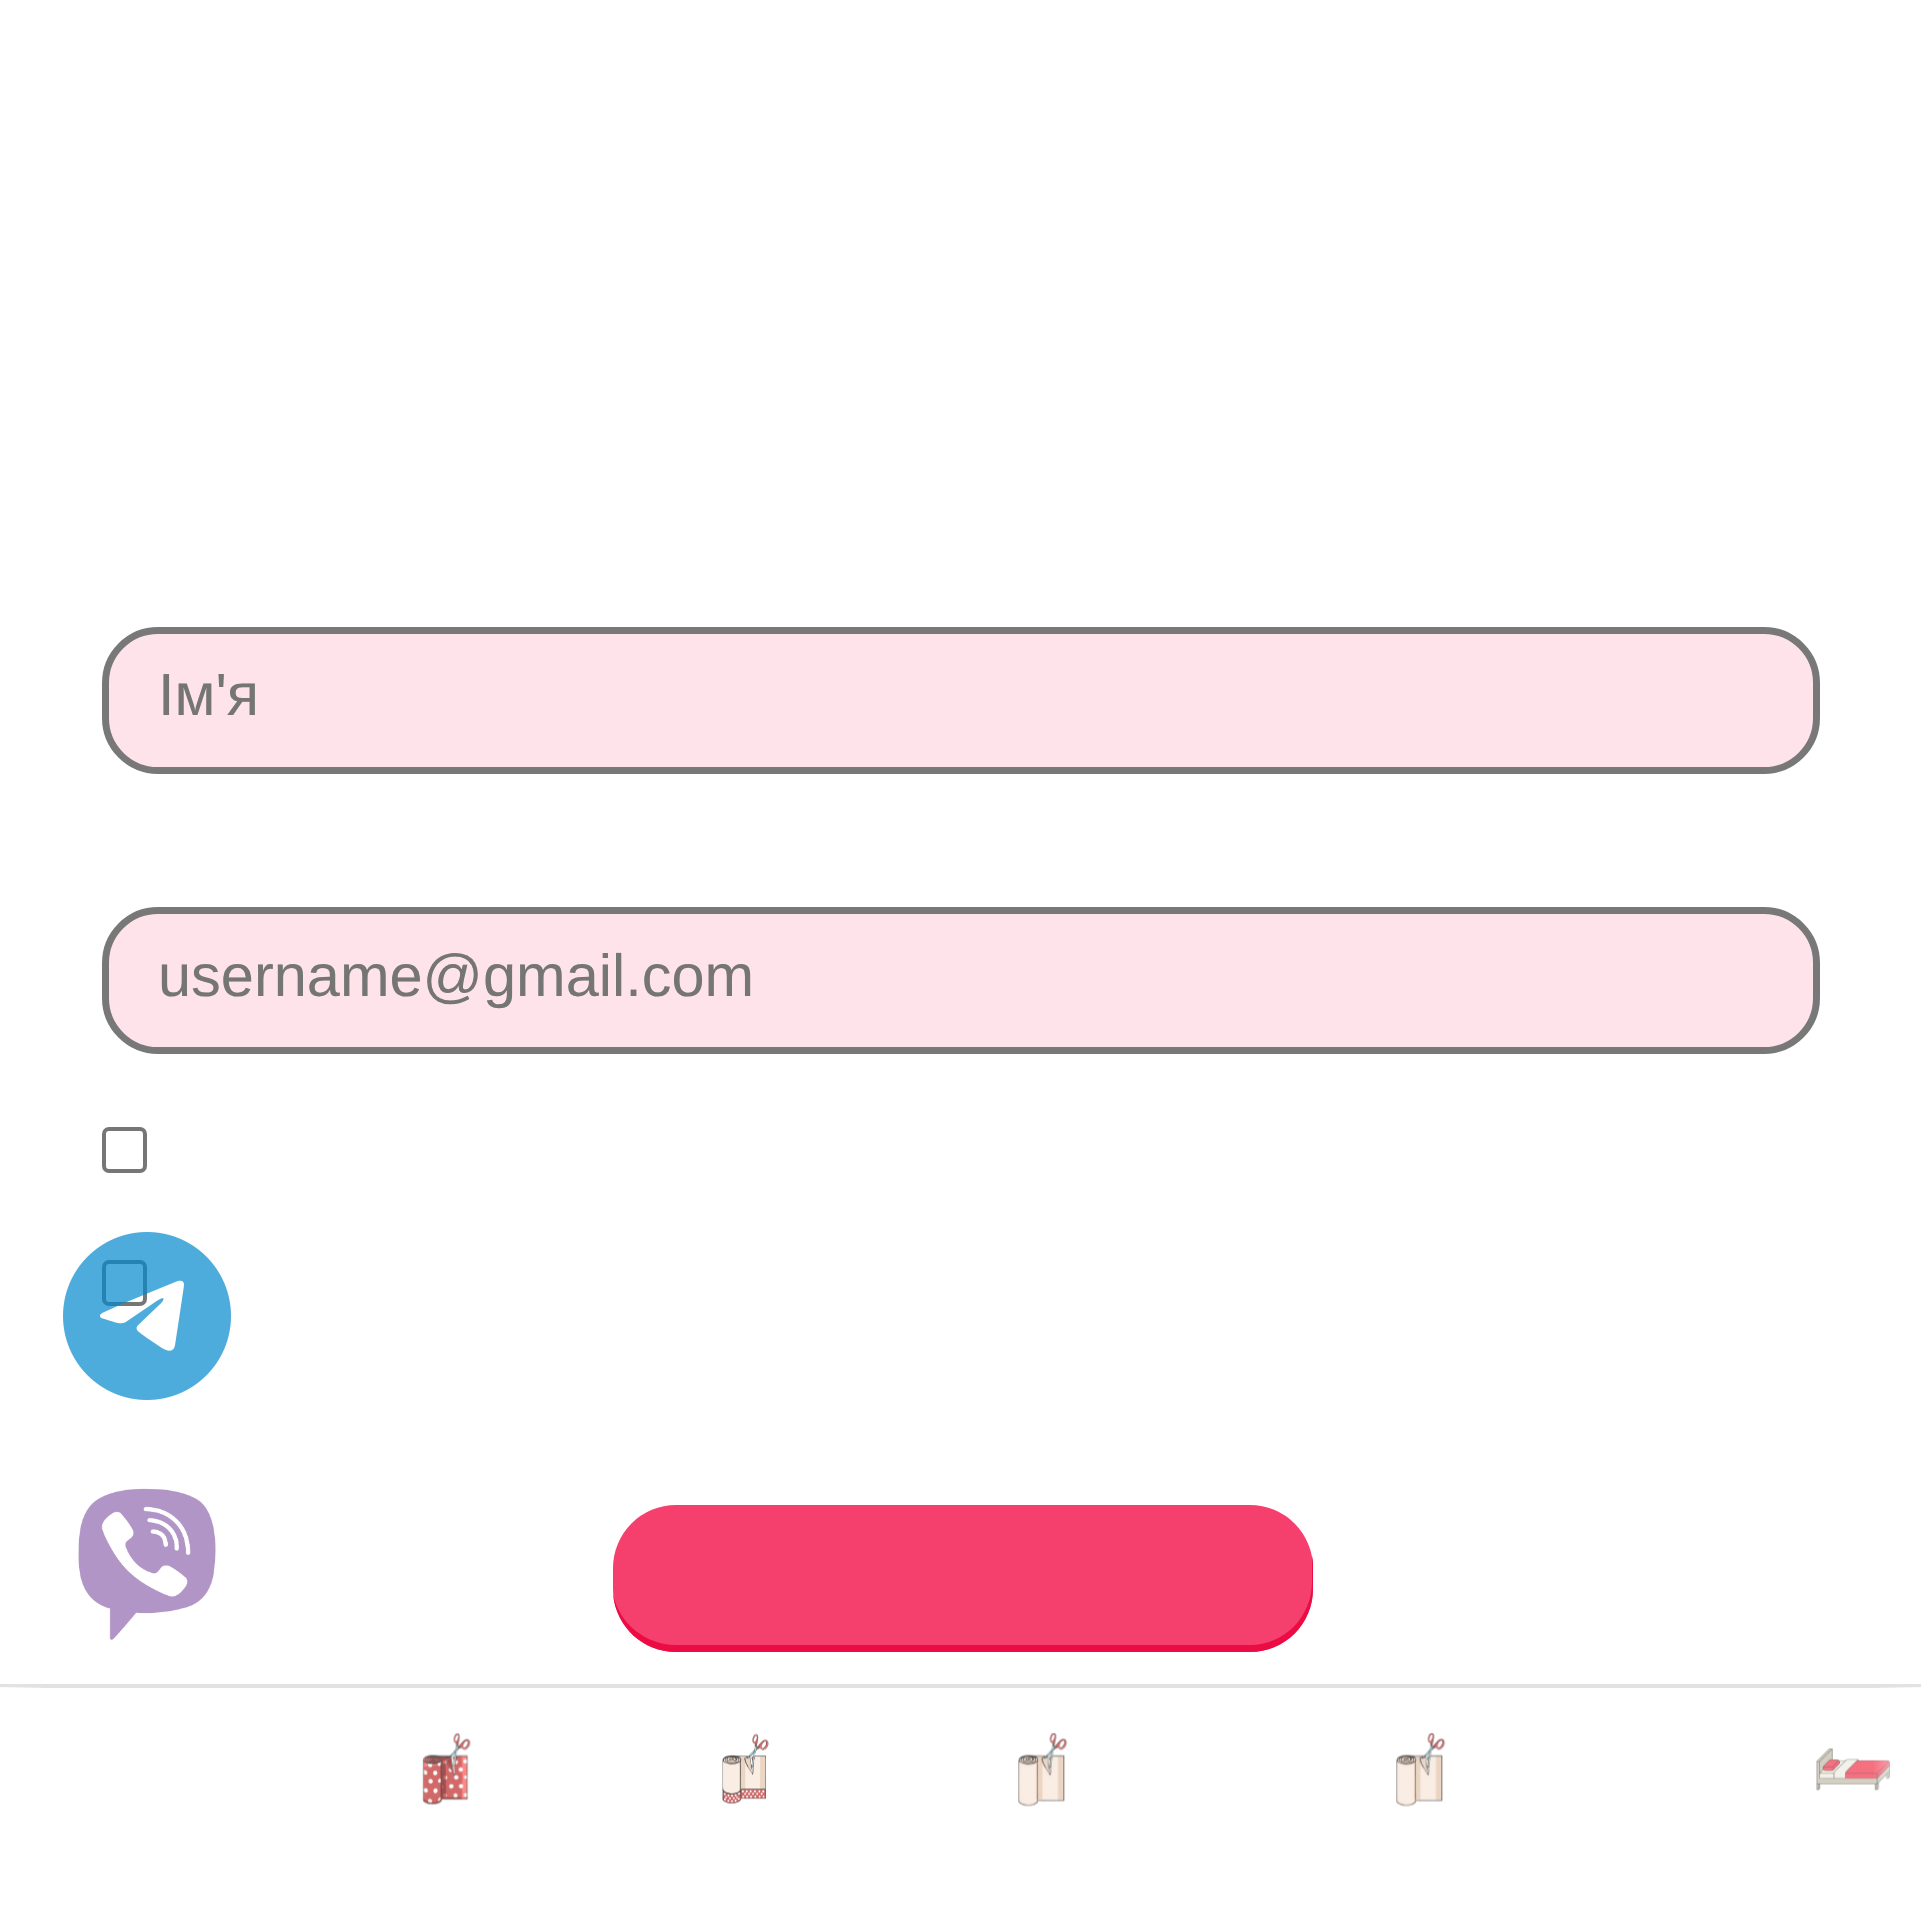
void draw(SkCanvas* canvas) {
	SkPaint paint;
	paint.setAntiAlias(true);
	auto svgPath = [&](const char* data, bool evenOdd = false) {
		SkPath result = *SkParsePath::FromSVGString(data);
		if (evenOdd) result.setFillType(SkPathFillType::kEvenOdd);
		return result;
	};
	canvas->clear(0xffffffff);
	paint.setColor(0xffffe3ea);
	canvas->drawRoundRect(SkRect::MakeXYWH(105.5, 630.5, 1711, 140), 52.5, 52.5, paint);
	paint.setStroke(true);
	paint.setStrokeWidth(7);
	paint.setColor(0xff787878);
	canvas->drawRoundRect(SkRect::MakeXYWH(105.5, 630.5, 1711, 140), 52.5, 52.5, paint);
	SkFont f1(fontMgr->matchFamilyStyle("Liberation Sans", SkFontStyle::Normal()), 59.5);
	f1.setSubpixel(true);
	paint.setStroke(false);
	paint.setColor(0xff757575);
	canvas->drawString("Ім'я", 158, 715, f1, paint);
	paint.setColor(0xffffe3ea);
	canvas->drawRoundRect(SkRect::MakeXYWH(105.5, 910.5, 1711, 140), 52.5, 52.5, paint);
	paint.setStroke(true);
	paint.setColor(0xff787878);
	canvas->drawRoundRect(SkRect::MakeXYWH(105.5, 910.5, 1711, 140), 52.5, 52.5, paint);
	paint.setStroke(false);
	paint.setColor(0xff757575);
	canvas->drawString("username@gmail.com", 158, 996, f1, paint);
	paint.setStroke(true);
	paint.setStrokeWidth(4);
	paint.setColor(0xff767676);
	canvas->drawRoundRect(SkRect::MakeXYWH(104, 1129, 41, 42), 5, 5, paint);
	canvas->drawRoundRect(SkRect::MakeXYWH(104, 1262, 41, 42), 5, 5, paint);
	paint.setStroke(false);
	paint.setColor(0xfff53f6d);
	canvas->drawRoundRect(SkRect::MakeXYWH(613, 1505, 700, 147), 63, 63, paint);
	paint.setColor(0xffeb0c44);
	canvas->drawPath(svgPath("M613 1594C616 1627 643 1652 676 1652H1250C1285 1652 1313 1624 1313 1589V1568C1313 1564 1313 1560 1312 1556V1582C1312 1617 1284 1645 1250 1645H676C645 1645 619 1623 613 1594Z"), paint);
	canvas->drawImageRect(SkImages::DeferredFromEncodedData(SkData::MakeFromFileName("img1.png")), SkRect::MakeXYWH(63, 1232, 168, 168), SkSamplingOptions());
	canvas->drawImageRect(SkImages::DeferredFromEncodedData(SkData::MakeFromFileName("img2.png")), SkRect::MakeXYWH(78, 1488, 138, 152), SkSamplingOptions());
	paint.setColor(0xffe2e2e2);
	canvas->drawRect(SkRect::MakeXYWH(0, 1684, 1921, 4), paint);
	{
		const SkColor colors[] = {0x00ffffff, 0xffffffff};
		const float stops[] = {0, 1};
		const SkPoint ends[] = {{49, 1801}, {-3.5, 1801}};
		paint.setShader(SkGradientShader::MakeLinear(ends, colors, stops, 2, SkTileMode::kClamp));
		paint.setAlpha(255);
	}
	canvas->drawRect(SkRect::MakeXYWH(0, 1687, 44, 1), paint);
	canvas->drawImageRect(SkImages::DeferredFromEncodedData(SkData::MakeFromFileName("img3.png")), SkRect::MakeXYWH(422, 1733, 49, 72), SkSamplingOptions());
	canvas->drawImageRect(SkImages::DeferredFromEncodedData(SkData::MakeFromFileName("img4.png")), SkRect::MakeXYWH(722, 1733, 47, 71), SkSamplingOptions());
	canvas->drawImageRect(SkImages::DeferredFromEncodedData(SkData::MakeFromFileName("img5.png")), SkRect::MakeXYWH(1018, 1733, 50, 74), SkSamplingOptions());
	canvas->drawImageRect(SkImages::DeferredFromEncodedData(SkData::MakeFromFileName("img5.png")), SkRect::MakeXYWH(1396, 1733, 50, 74), SkSamplingOptions());
	canvas->drawImageRect(SkImages::DeferredFromEncodedData(SkData::MakeFromFileName("img6.png")), SkRect::MakeXYWH(1816, 1748, 74, 43), SkSamplingOptions());
	{
		const SkColor colors[] = {0x00ffffff, 0xffffffff};
		const float stops[] = {0, 1};
		const SkPoint ends[] = {{1873, 1801}, {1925, 1801}};
		paint.setShader(SkGradientShader::MakeLinear(ends, colors, stops, 2, SkTileMode::kClamp));
		paint.setAlpha(255);
	}
	canvas->drawRect(SkRect::MakeXYWH(1874, 1687, 47, 103), paint);
}
